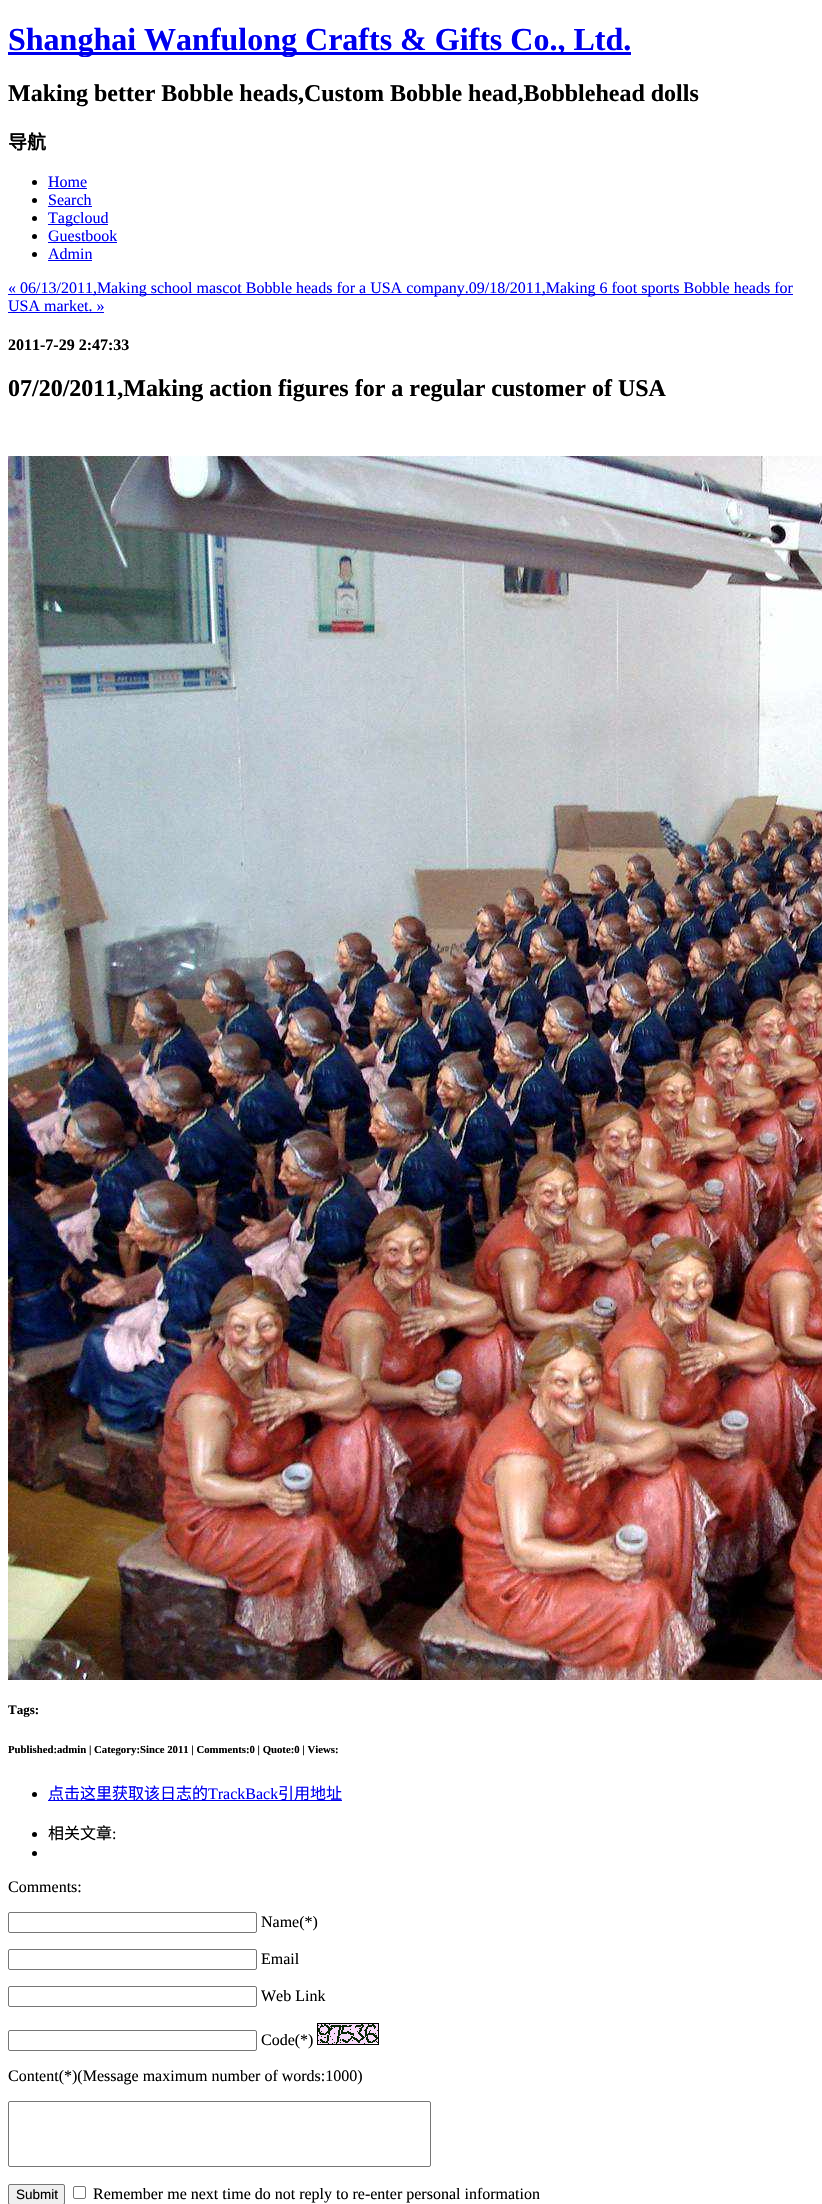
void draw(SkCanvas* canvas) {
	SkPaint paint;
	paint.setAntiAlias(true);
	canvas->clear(0xffffffff);
	paint.setColor(0xff0000ee);
	canvas->drawRect(SkRect::MakeXYWH(8, 52, 623, 3), paint);
	SkFont f1(fontMgr->matchFamilyStyle("Liberation Serif", SkFontStyle::Bold()), 32);
	f1.setSubpixel(true);
	canvas->drawString("Shanghai Wanfulong Crafts & Gifts Co., Ltd.", 8, 50, f1, paint);
	SkFont f2(fontMgr->matchFamilyStyle("Liberation Serif", SkFontStyle::Bold()), 24);
	f2.setSubpixel(true);
	paint.setColor(0xff000000);
	canvas->drawString("Making better Bobble heads,Custom Bobble head,Bobblehead dolls", 8, 101, f2, paint);
	SkFont f3(fontMgr->matchFamilyStyle("Noto Sans CJK SC", SkFontStyle::Bold()), 19);
	f3.setSubpixel(true);
	canvas->drawString("导航", 8, 149, f3, paint);
	canvas->drawCircle(34.5, 182.5, 2.5, paint);
	SkFont f4(fontMgr->matchFamilyStyle("Liberation Serif", SkFontStyle::Normal()), 16);
	f4.setSubpixel(true);
	paint.setColor(0xff0000ee);
	canvas->drawString("Home", 48, 187, f4, paint);
	canvas->drawRect(SkRect::MakeXYWH(48, 188, 39, 1), paint);
	paint.setColor(0xff000000);
	canvas->drawCircle(34.5, 200.5, 2.5, paint);
	paint.setColor(0xff0000ee);
	canvas->drawString("Search", 48, 205, f4, paint);
	canvas->drawRect(SkRect::MakeXYWH(48, 206, 44, 1), paint);
	paint.setColor(0xff000000);
	canvas->drawCircle(34.5, 218.5, 2.5, paint);
	paint.setColor(0xff0000ee);
	canvas->drawRect(SkRect::MakeXYWH(48, 224, 60, 1), paint);
	canvas->drawString("Tagcloud", 48, 223, f4, paint);
	paint.setColor(0xff000000);
	canvas->drawCircle(34.5, 236.5, 2.5, paint);
	paint.setColor(0xff0000ee);
	canvas->drawString("Guestbook", 48, 241, f4, paint);
	canvas->drawRect(SkRect::MakeXYWH(48, 242, 69, 1), paint);
	paint.setColor(0xff000000);
	canvas->drawCircle(34.5, 254.5, 2.5, paint);
	paint.setColor(0xff0000ee);
	canvas->drawString("Admin", 48, 259, f4, paint);
	canvas->drawRect(SkRect::MakeXYWH(48, 260, 44, 1), paint);
	canvas->drawRect(SkRect::MakeXYWH(8, 294, 785, 1), paint);
	canvas->drawString("« 06/13/2011,Making school mascot Bobble heads for a USA company.09/18/2011,Making 6 foot sports Bobble heads for", 8, 293, f4, paint);
	canvas->drawString("USA market. »", 8, 311, f4, paint);
	canvas->drawRect(SkRect::MakeXYWH(8, 312, 96, 1), paint);
	SkFont f5(fontMgr->matchFamilyStyle("Liberation Serif", SkFontStyle::Bold()), 16);
	f5.setSubpixel(true);
	paint.setColor(0xff000000);
	canvas->drawString("2011-7-29 2:47:33", 8, 350, f5, paint);
	canvas->drawString("07/20/2011,Making action figures for a regular customer of USA", 8, 396, f2, paint);
	canvas->drawImageRect(SkImages::DeferredFromEncodedData(SkData::MakeFromFileName("img1.png")), SkRect::MakeXYWH(8, 456, 814, 1224), SkSamplingOptions());
	SkFont f6(fontMgr->matchFamilyStyle("Liberation Serif", SkFontStyle::Bold()), 13);
	f6.setSubpixel(true);
	canvas->drawString("Tags:", 8, 1714, f6, paint);
	SkFont f7(fontMgr->matchFamilyStyle("Liberation Serif", SkFontStyle::Bold()), 10.75);
	f7.setSubpixel(true);
	canvas->drawString("Published:admin | Category:Since 2011 | Comments:0 | Quote:0 | Views:", 8, 1753, f7, paint);
	canvas->drawCircle(34.5, 1794.5, 2.5, paint);
	paint.setColor(0xff0000ee);
	canvas->drawRect(SkRect::MakeXYWH(48, 1800, 294, 1), paint);
	SkFont f8(fontMgr->matchFamilyStyle("Noto Sans CJK SC", SkFontStyle::Normal()), 16);
	f8.setSubpixel(true);
	canvas->drawString("点击这里获取该日志的", 48, 1799, f8, paint);
	canvas->drawString("TrackBack", 208, 1799, f4, paint);
	canvas->drawString("引用地址", 278, 1799, f8, paint);
	paint.setColor(0xff000000);
	canvas->drawCircle(34.5, 1834.5, 2.5, paint);
	canvas->drawString("相关文章", 48, 1839, f8, paint);
	canvas->drawString(":", 112, 1839, f4, paint);
	canvas->drawCircle(34.5, 1853.5, 2.5, paint);
	canvas->drawString("Comments:", 8, 1892, f4, paint);
	paint.setStroke(true);
	paint.setStrokeWidth(1);
	paint.setColor(0xff767676);
	canvas->drawRoundRect(SkRect::MakeXYWH(8.5, 1912.5, 248, 20), 1.5, 1.5, paint);
	paint.setStroke(false);
	paint.setColor(0xff000000);
	canvas->drawString("Name(*)", 261, 1927, f4, paint);
	paint.setStroke(true);
	paint.setColor(0xff767676);
	canvas->drawRoundRect(SkRect::MakeXYWH(8.5, 1949.5, 248, 20), 1.5, 1.5, paint);
	paint.setStroke(false);
	paint.setColor(0xff000000);
	canvas->drawString("Email", 261, 1964, f4, paint);
	paint.setStroke(true);
	paint.setColor(0xff767676);
	canvas->drawRoundRect(SkRect::MakeXYWH(8.5, 1986.5, 248, 20), 1.5, 1.5, paint);
	paint.setStroke(false);
	paint.setColor(0xff000000);
	canvas->drawString("Web Link", 261, 2001, f4, paint);
	paint.setStroke(true);
	canvas->drawRect(SkRect::MakeXYWH(317.5, 2023.5, 61, 21), paint);
	paint.setColor(0xff767676);
	canvas->drawRoundRect(SkRect::MakeXYWH(8.5, 2030.5, 248, 20), 1.5, 1.5, paint);
	paint.setStroke(false);
	paint.setColor(0xff000000);
	canvas->drawString("Code(*)", 261, 2045, f4, paint);
	canvas->drawImageRect(SkImages::DeferredFromEncodedData(SkData::MakeFromFileName("img2.png")), SkRect::MakeXYWH(318, 2024, 60, 20), SkSamplingOptions());
	canvas->drawString("Content(*)(Message maximum number of words:1000)", 8, 2081, f4, paint);
	paint.setStroke(true);
	paint.setColor(0xff767676);
	canvas->drawRoundRect(SkRect::MakeXYWH(8.5, 2101.5, 422, 65), 1.5, 1.5, paint);
	paint.setStroke(false);
	paint.setColor(0xffefefef);
	canvas->drawRoundRect(SkRect::MakeXYWH(8.5, 2184.5, 56, 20), 1.5, 1.5, paint);
	paint.setStroke(true);
	paint.setColor(0xff767676);
	canvas->drawRoundRect(SkRect::MakeXYWH(8.5, 2184.5, 56, 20), 1.5, 1.5, paint);
	SkFont f9(fontMgr->matchFamilyStyle("Liberation Sans", SkFontStyle::Normal()), 13.5);
	f9.setSubpixel(true);
	paint.setStroke(false);
	paint.setColor(0xff000000);
	canvas->drawString("Submit", 16, 2199, f9, paint);
	paint.setStroke(true);
	paint.setColor(0xff767676);
	canvas->drawRoundRect(SkRect::MakeXYWH(73.5, 2186.5, 12, 12), 1.5, 1.5, paint);
	paint.setStroke(false);
	paint.setColor(0xff000000);
	canvas->drawString("Remember me next time do not reply to re-enter personal information", 93, 2199, f4, paint);
}
